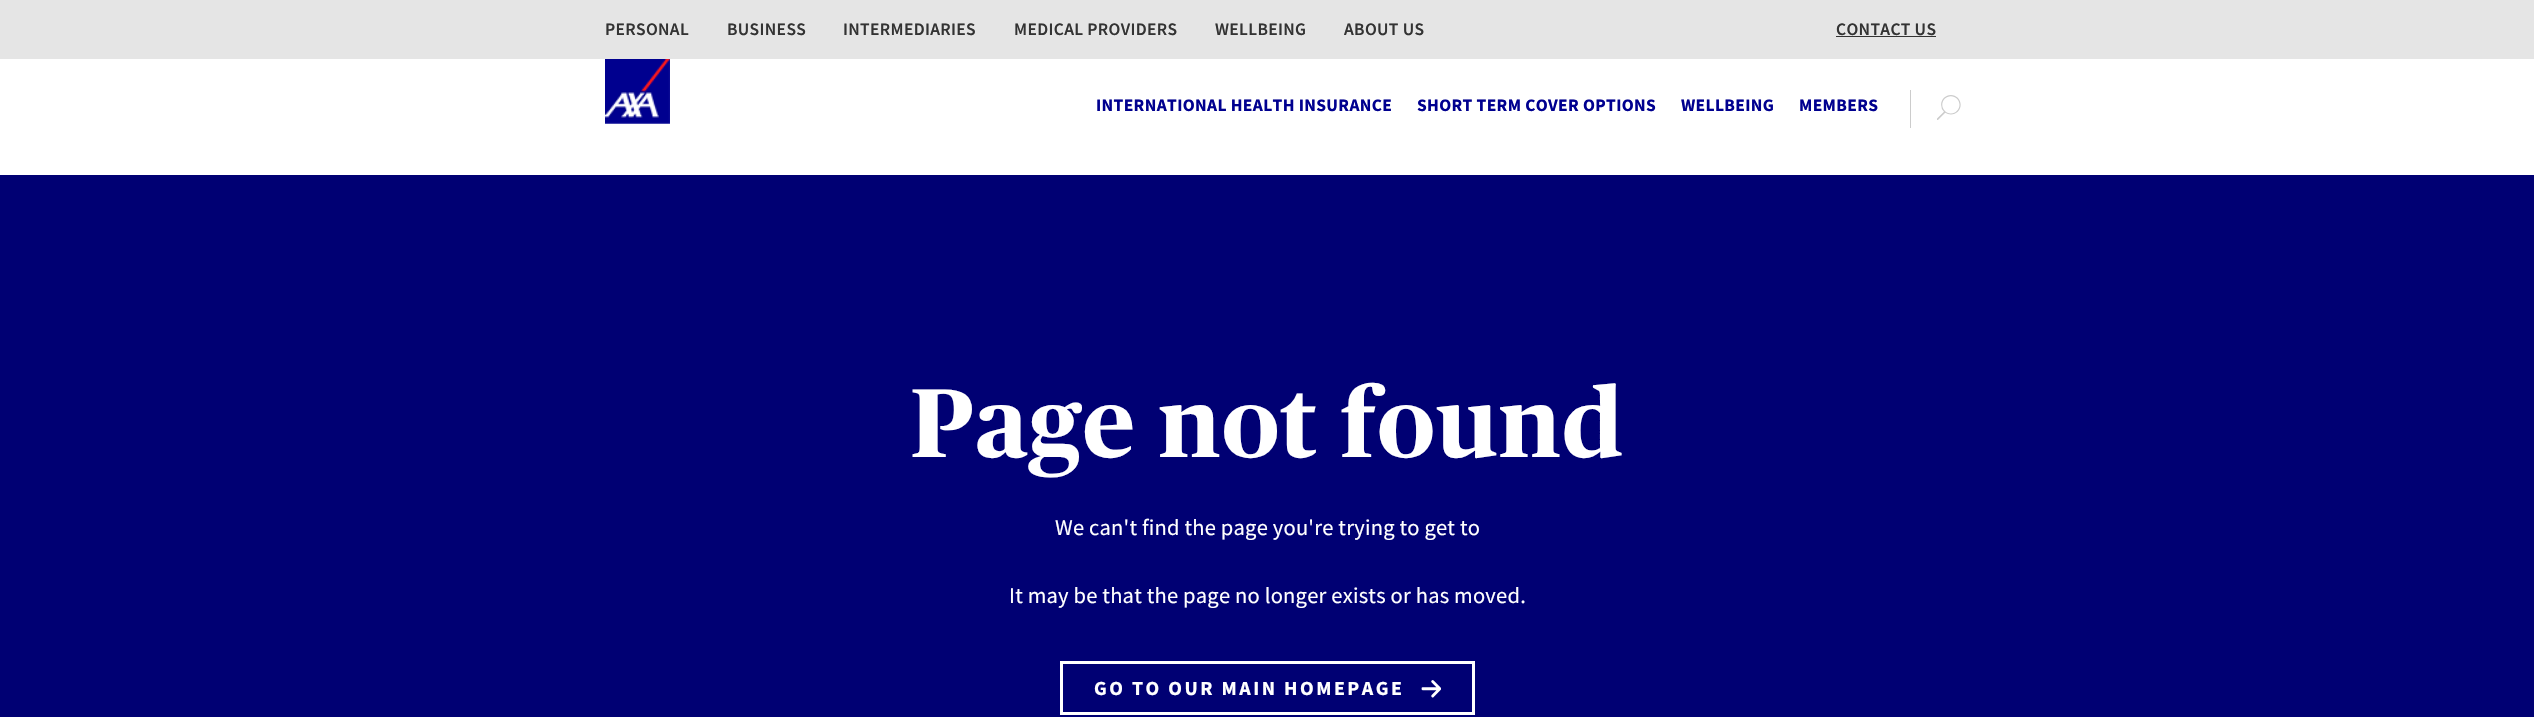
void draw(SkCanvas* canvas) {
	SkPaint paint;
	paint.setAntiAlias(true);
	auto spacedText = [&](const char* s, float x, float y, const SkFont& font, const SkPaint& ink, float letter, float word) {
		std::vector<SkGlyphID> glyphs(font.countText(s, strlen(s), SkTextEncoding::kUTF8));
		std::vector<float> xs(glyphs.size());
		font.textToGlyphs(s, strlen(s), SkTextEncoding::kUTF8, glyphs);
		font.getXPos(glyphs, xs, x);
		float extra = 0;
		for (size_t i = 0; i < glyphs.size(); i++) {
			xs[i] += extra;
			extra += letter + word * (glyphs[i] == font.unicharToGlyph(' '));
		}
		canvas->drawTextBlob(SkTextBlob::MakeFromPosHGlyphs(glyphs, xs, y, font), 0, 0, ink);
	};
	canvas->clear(0xffffffff);
	paint.setColor(0xffe5e5e5);
	canvas->drawRect(SkRect::MakeXYWH(0, 0, 2534, 59), paint);
	SkFont f1(fontMgr->matchFamilyStyle("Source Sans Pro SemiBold", SkFontStyle(600, SkFontStyle::kNormal_Width, SkFontStyle::kUpright_Slant)), 17.5);
	f1.setSubpixel(true);
	paint.setColor(0xff333333);
	spacedText("PERSONAL", 605, 35, f1, paint, 0.35, 0);
	spacedText("BUSINESS", 727, 35, f1, paint, 0.35, 0);
	spacedText("INTERMEDIARIES", 843, 35, f1, paint, 0.35, 0);
	spacedText("MEDICAL PROVIDERS", 1014, 35, f1, paint, 0.35, 0);
	spacedText("WELLBEING", 1215, 35, f1, paint, 0.35, 0);
	spacedText("ABOUT US", 1344, 35, f1, paint, 0.35, 0);
	spacedText("CONTACT US", 1836, 35, f1, paint, 0.35, 0);
	canvas->drawRect(SkRect::MakeXYWH(1836, 36, 100, 1), paint);
	canvas->drawImageRect(SkImages::DeferredFromEncodedData(SkData::MakeFromFileName("img1.png")), SkRect::MakeXYWH(605, 59, 65, 65), SkSamplingOptions());
	SkFont f2(fontMgr->matchFamilyStyle("Source Sans Pro", SkFontStyle::Bold()), 17.5);
	f2.setSubpixel(true);
	paint.setColor(0xff00008f);
	spacedText("INTERNATIONAL HEALTH INSURANCE", 1096, 111, f2, paint, 0.35, 0);
	spacedText("SHORT TERM COVER OPTIONS", 1417, 111, f2, paint, 0.35, 0);
	spacedText("WELLBEING", 1681, 111, f2, paint, 0.35, 0);
	spacedText("MEMBERS", 1799, 111, f2, paint, 0.35, 0);
	paint.setColor(0xffcccccc);
	canvas->drawRect(SkRect::MakeXYWH(1910, 90, 1, 38), paint);
	canvas->drawImageRect(SkImages::DeferredFromEncodedData(SkData::MakeFromFileName("img2.png")), SkRect::MakeXYWH(1937, 95, 24, 25), SkSamplingOptions());
	paint.setColor(0xff000073);
	canvas->drawRect(SkRect::MakeXYWH(0, 175, 2534, 542), paint);
	SkFont f3(fontMgr->matchFamilyStyle("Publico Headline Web", SkFontStyle::Bold()), 97.5);
	f3.setSubpixel(true);
	paint.setColor(0xffffffff);
	spacedText("Page not found", 911, 457, f3, paint, 2, 0);
	SkFont f4(fontMgr->matchFamilyStyle("Source Sans Pro", SkFontStyle::Normal()), 22.5);
	f4.setSubpixel(true);
	spacedText("We can't find the page you're trying to get to", 1055, 535, f4, paint, 0.22, 0);
	spacedText("It may be that the page no longer exists or has moved.", 1009, 603, f4, paint, 0.22, 0);
	paint.setStroke(true);
	paint.setStrokeWidth(3);
	canvas->drawRect(SkRect::MakeXYWH(1061.5, 662.5, 412, 51), paint);
	SkFont f5(fontMgr->matchFamilyStyle("Source Sans Pro", SkFontStyle::Bold()), 20);
	f5.setSubpixel(true);
	paint.setStroke(false);
	spacedText("GO TO OUR MAIN HOMEPAGE", 1094, 695, f5, paint, 2.5, 0);
	canvas->drawImageRect(SkImages::DeferredFromEncodedData(SkData::MakeFromFileName("img3.png")), SkRect::MakeXYWH(1421, 680, 20, 18), SkSamplingOptions());
}
